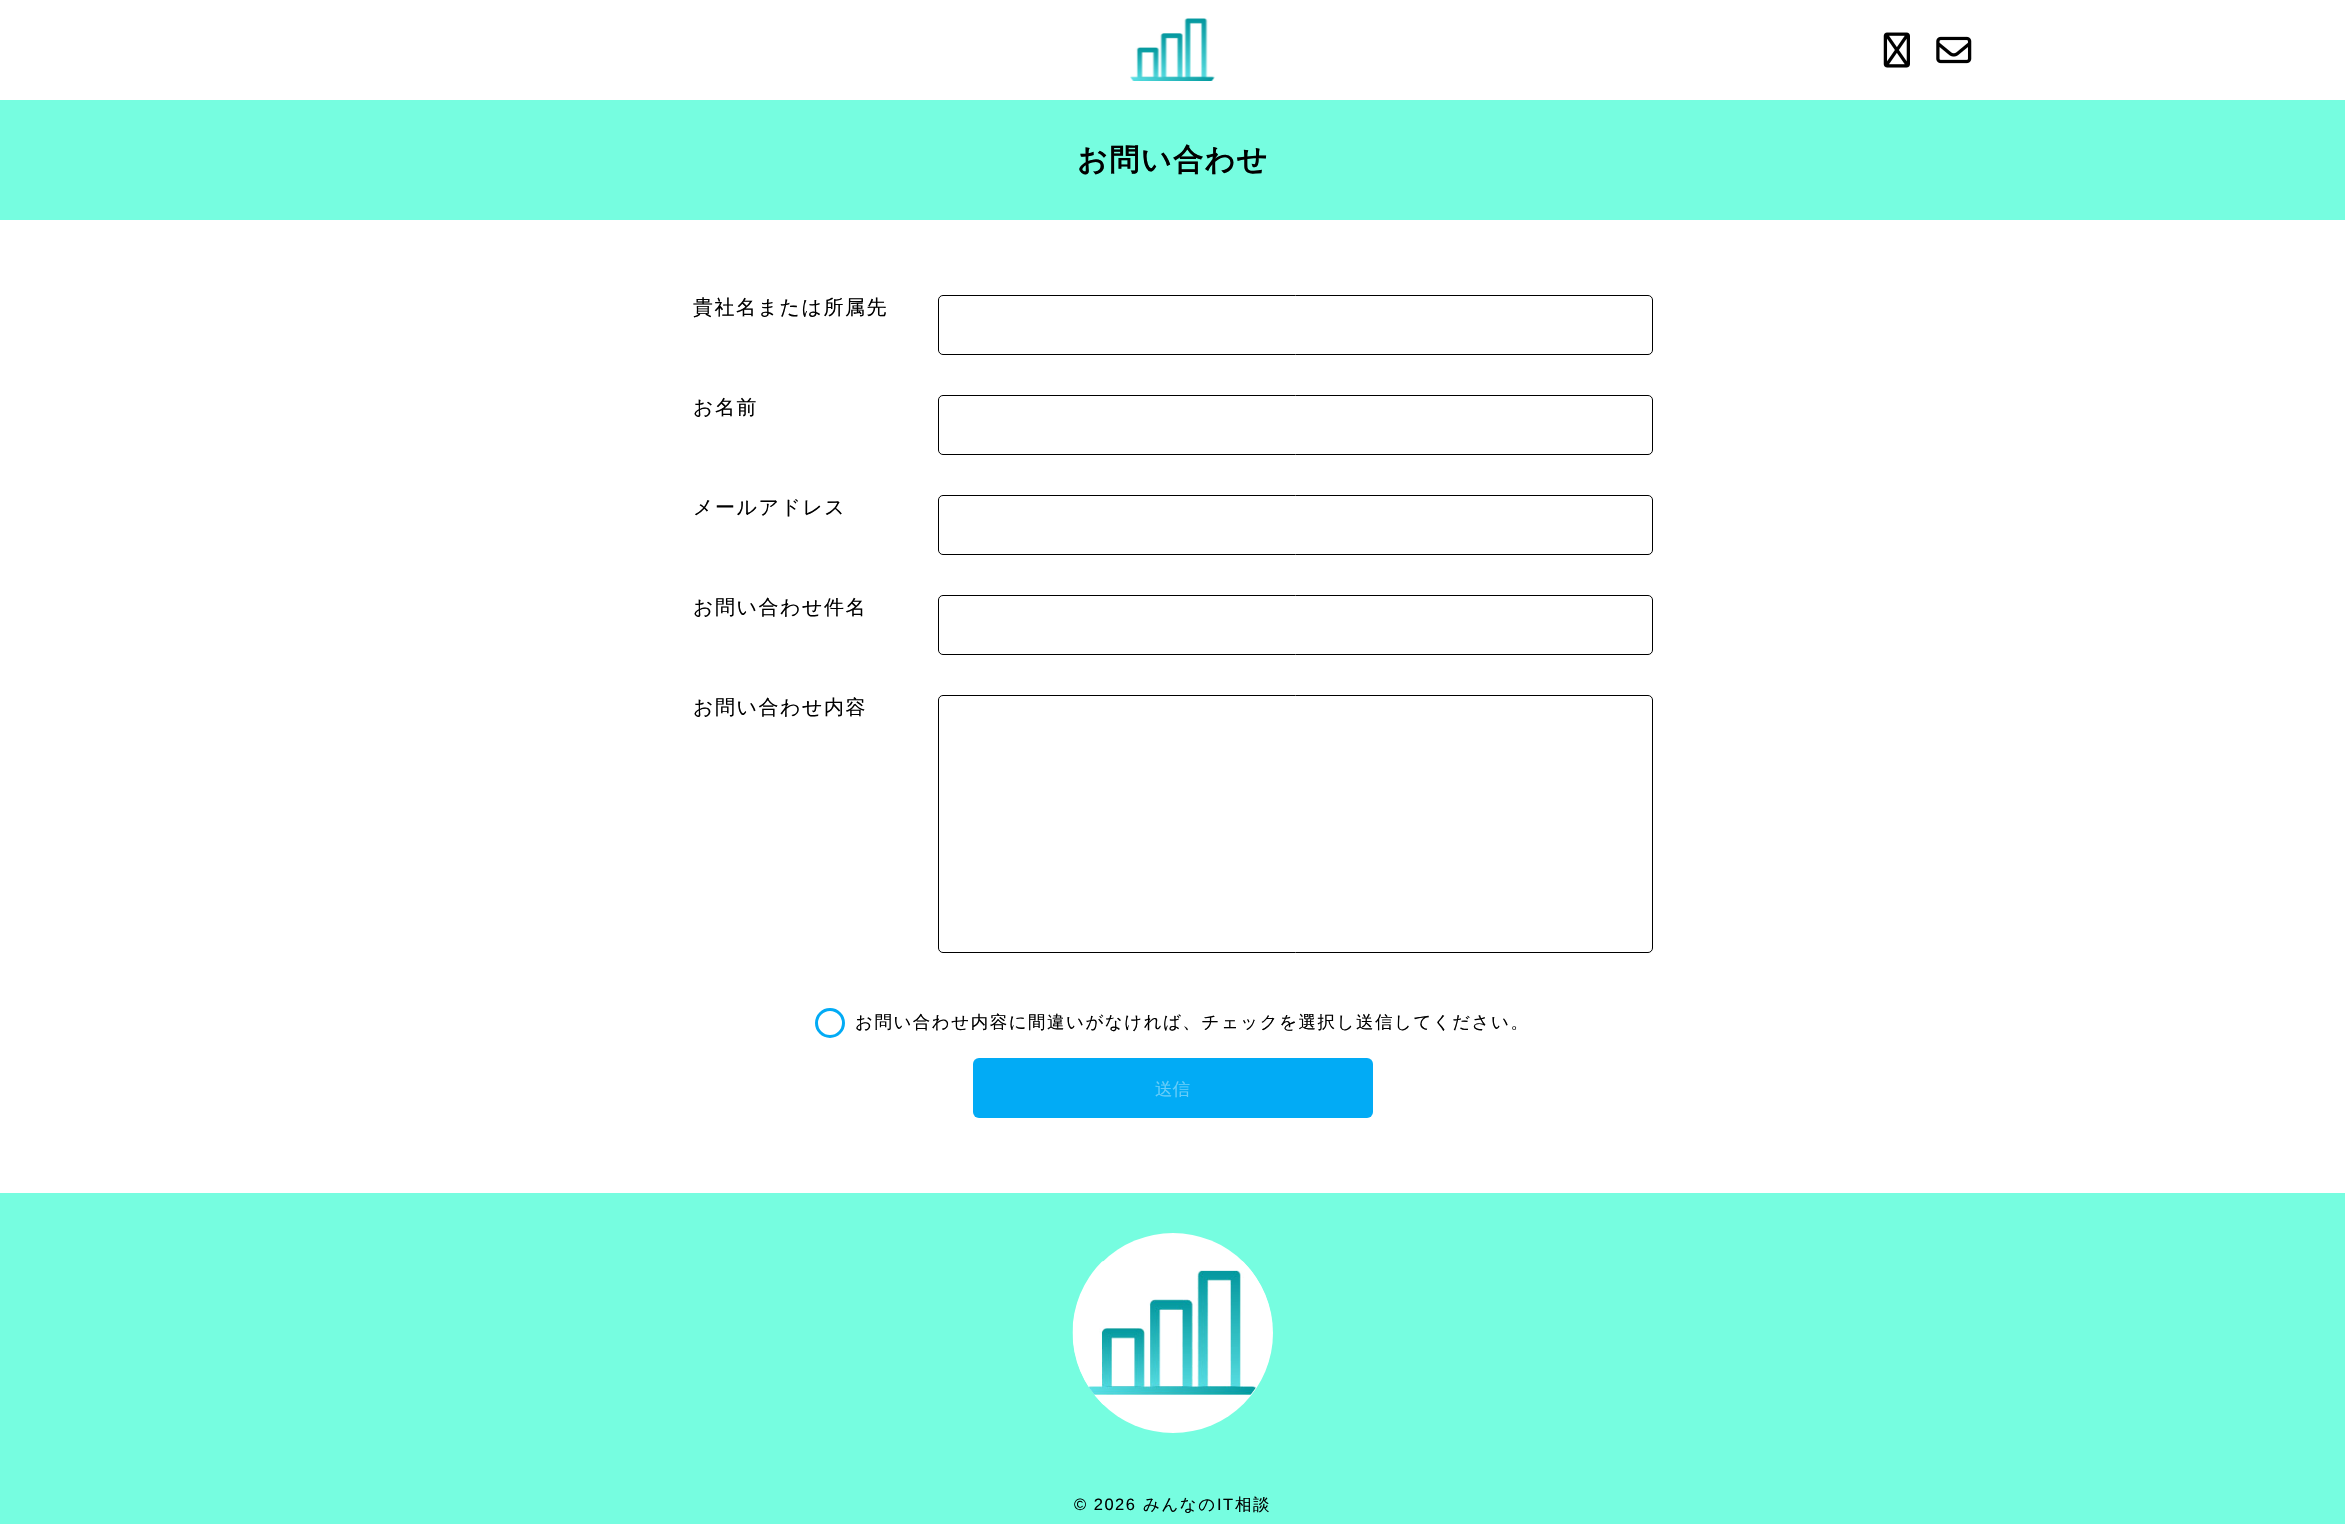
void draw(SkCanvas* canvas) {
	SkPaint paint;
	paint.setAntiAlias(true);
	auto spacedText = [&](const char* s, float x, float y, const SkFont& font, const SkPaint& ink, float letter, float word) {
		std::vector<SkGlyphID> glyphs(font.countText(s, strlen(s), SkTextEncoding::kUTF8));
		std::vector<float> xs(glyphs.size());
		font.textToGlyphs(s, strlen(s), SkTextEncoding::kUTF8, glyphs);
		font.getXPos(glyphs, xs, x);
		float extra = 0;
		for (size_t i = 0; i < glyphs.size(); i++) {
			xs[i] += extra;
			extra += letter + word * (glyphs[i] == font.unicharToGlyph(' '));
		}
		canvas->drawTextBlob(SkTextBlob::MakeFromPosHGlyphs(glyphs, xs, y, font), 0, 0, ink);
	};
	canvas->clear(0xffffffff);
	canvas->drawImageRect(SkImages::DeferredFromEncodedData(SkData::MakeFromFileName("img1.png")), SkRect::MakeXYWH(1130, 18, 85, 63), SkSamplingOptions());
	canvas->drawImageRect(SkImages::DeferredFromEncodedData(SkData::MakeFromFileName("img2.png")), SkRect::MakeXYWH(1883, 32, 27, 36), SkSamplingOptions());
	canvas->drawImageRect(SkImages::DeferredFromEncodedData(SkData::MakeFromFileName("img3.png")), SkRect::MakeXYWH(1936, 36, 36, 28), SkSamplingOptions());
	paint.setColor(0xff76fde0);
	canvas->drawRect(SkRect::MakeXYWH(0, 100, 2345, 120), paint);
	SkFont f1(fontMgr->matchFamilyStyle("WenQuanYi Zen Hei", SkFontStyle::Bold()), 30);
	f1.setSubpixel(true);
	paint.setColor(0xff000000);
	spacedText("お問い合わせ", 1077, 170, f1, paint, 1.5, 0);
	SkFont f2(fontMgr->matchFamilyStyle("WenQuanYi Zen Hei", SkFontStyle(500, SkFontStyle::kNormal_Width, SkFontStyle::kUpright_Slant)), 20);
	f2.setSubpixel(true);
	spacedText("貴社名または所属先", 693, 314, f2, paint, 1.5, 0);
	paint.setStroke(true);
	paint.setStrokeWidth(1);
	canvas->drawRoundRect(SkRect::MakeXYWH(938.5, 295.5, 714, 59), 4.5, 4.5, paint);
	paint.setStroke(false);
	spacedText("お名前", 693, 414, f2, paint, 1.5, 0);
	paint.setStroke(true);
	canvas->drawRoundRect(SkRect::MakeXYWH(938.5, 395.5, 714, 59), 4.5, 4.5, paint);
	paint.setStroke(false);
	spacedText("メールアドレス", 693, 514, f2, paint, 1.5, 0);
	paint.setStroke(true);
	canvas->drawRoundRect(SkRect::MakeXYWH(938.5, 495.5, 714, 59), 4.5, 4.5, paint);
	paint.setStroke(false);
	spacedText("お問い合わせ件名", 693, 614, f2, paint, 1.5, 0);
	paint.setStroke(true);
	canvas->drawRoundRect(SkRect::MakeXYWH(938.5, 595.5, 714, 59), 4.5, 4.5, paint);
	paint.setStroke(false);
	spacedText("お問い合わせ内容", 693, 714, f2, paint, 1.5, 0);
	paint.setStroke(true);
	canvas->drawRoundRect(SkRect::MakeXYWH(938.5, 695.5, 714, 257), 4.5, 4.5, paint);
	paint.setStrokeWidth(3);
	paint.setColor(0xff02abf5);
	canvas->drawCircle(830, 1023, 13.5, paint);
	SkFont f3(fontMgr->matchFamilyStyle("WenQuanYi Zen Hei", SkFontStyle(500, SkFontStyle::kNormal_Width, SkFontStyle::kUpright_Slant)), 17.5);
	f3.setSubpixel(true);
	paint.setStroke(false);
	paint.setColor(0xff000000);
	spacedText("お問い合わせ内容に間違いがなければ、チェックを選択し送信してください。", 855, 1028, f3, paint, 1.5, 0);
	paint.setColor(0xff02abf5);
	canvas->drawRoundRect(SkRect::MakeXYWH(973, 1058, 400, 60), 6, 6, paint);
	paint.setColor(0xff67cdf9);
	canvas->drawString("送信", 1155, 1095, f3, paint);
	paint.setColor(0xff76fde0);
	canvas->drawRect(SkRect::MakeXYWH(0, 1193, 2345, 331), paint);
	paint.setColor(0xffffffff);
	canvas->drawCircle(1173, 1333, 100, paint);
	canvas->drawImageRect(SkImages::DeferredFromEncodedData(SkData::MakeFromFileName("img4.png")), SkRect::MakeXYWH(1072, 1261, 200, 144), SkSamplingOptions());
	SkFont f4(fontMgr->matchFamilyStyle("Liberation Sans", SkFontStyle::Normal()), 16.5);
	f4.setSubpixel(true);
	paint.setColor(0xff000000);
	spacedText("© 2026", 1074, 1510, f4, paint, 1.5, 0);
	SkFont f5(fontMgr->matchFamilyStyle("WenQuanYi Zen Hei", SkFontStyle(500, SkFontStyle::kNormal_Width, SkFontStyle::kUpright_Slant)), 16.5);
	f5.setSubpixel(true);
	spacedText("みんなの", 1143, 1510, f5, paint, 1.5, 0);
	spacedText("IT", 1217, 1510, f4, paint, 1.5, 0);
	spacedText("相談", 1235, 1510, f5, paint, 1.5, 0);
}
